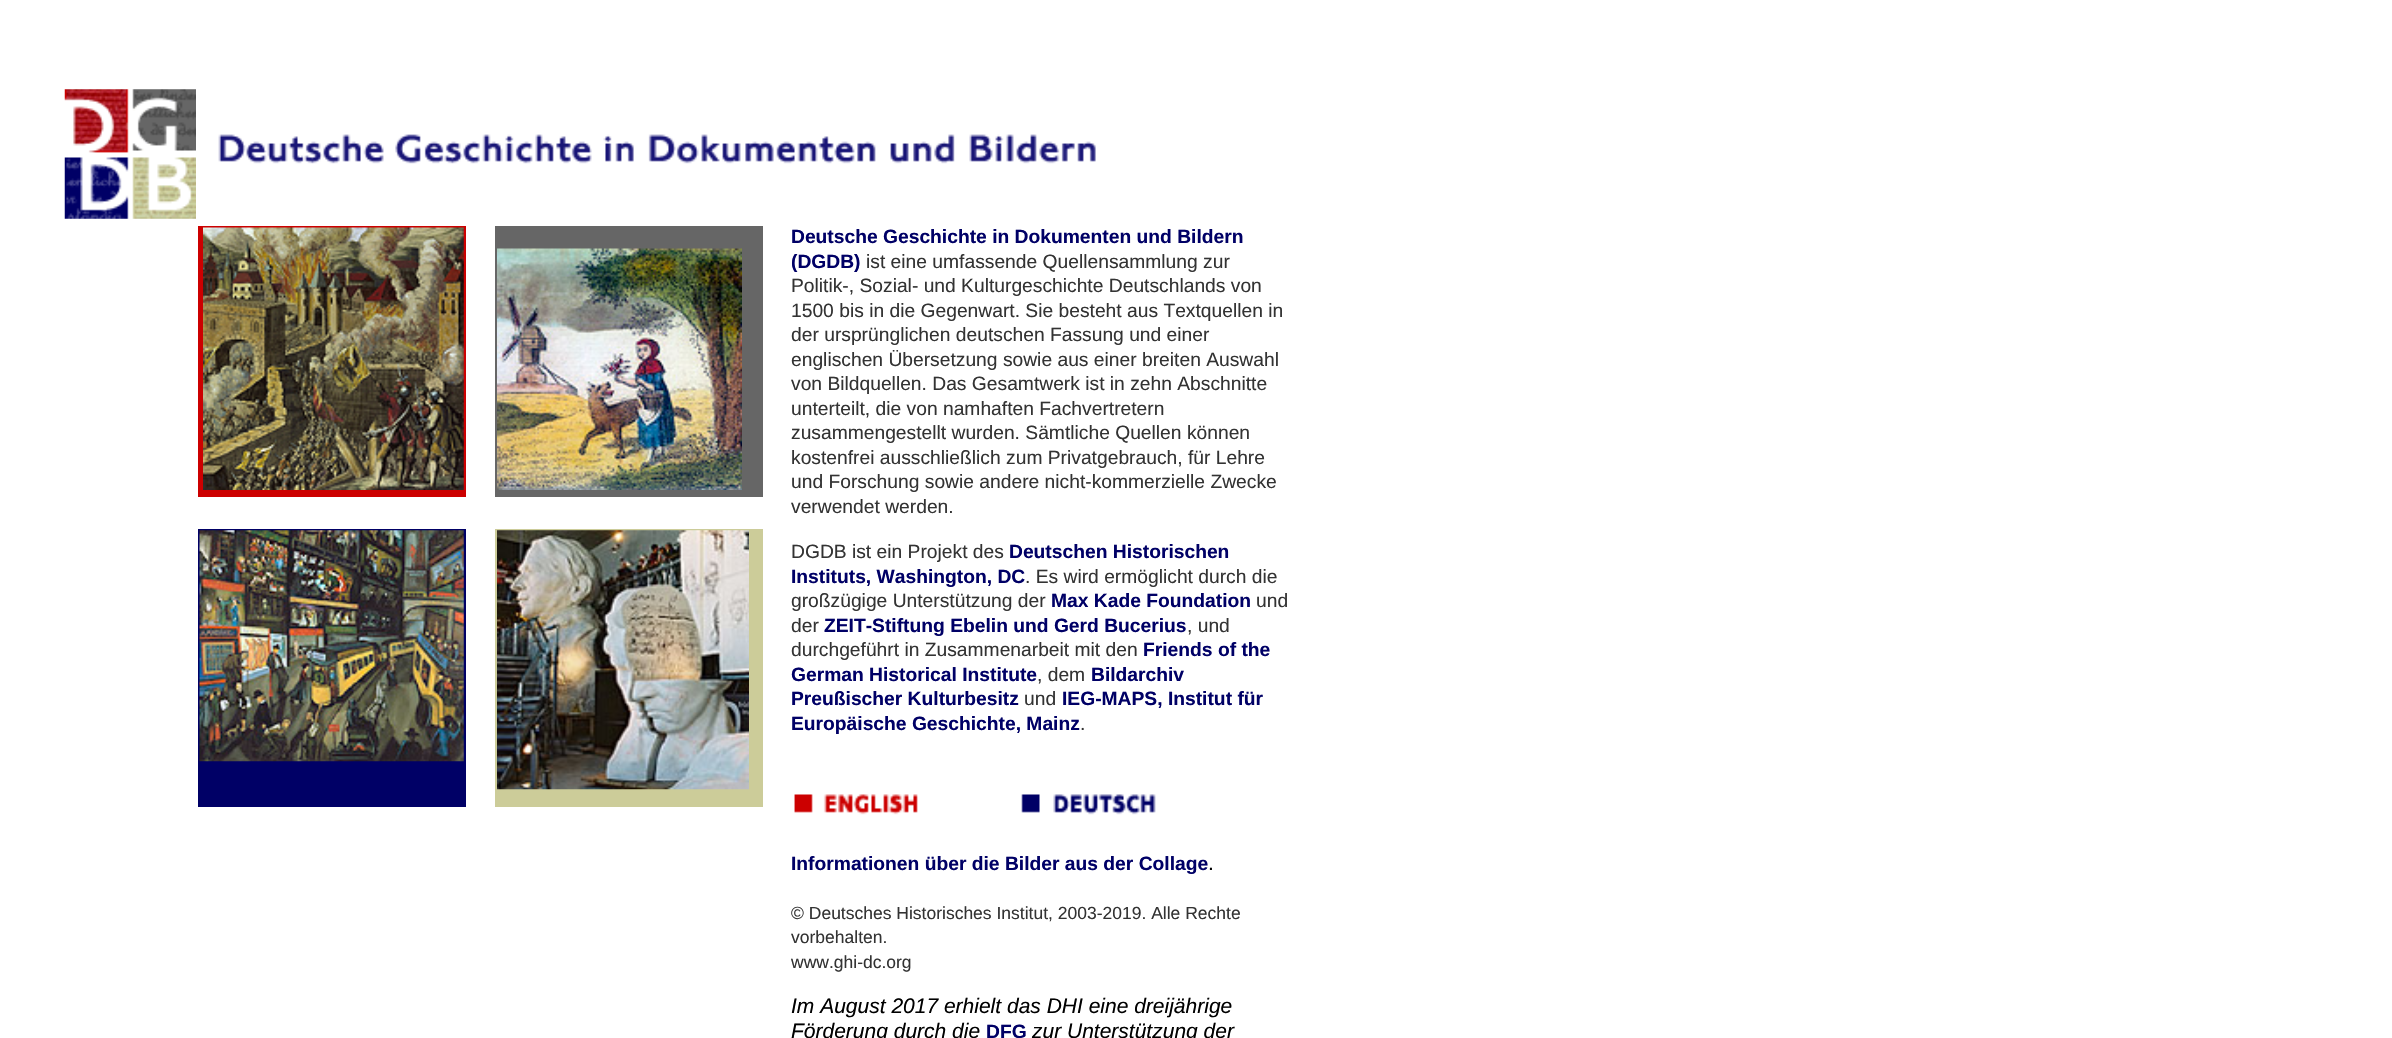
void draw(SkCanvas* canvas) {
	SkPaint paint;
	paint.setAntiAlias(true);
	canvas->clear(0xffffffff);
	canvas->drawImageRect(SkImages::DeferredFromEncodedData(SkData::MakeFromFileName("img1.png")), SkRect::MakeXYWH(64, 89, 132, 130), SkSamplingOptions());
	canvas->drawImageRect(SkImages::DeferredFromEncodedData(SkData::MakeFromFileName("img2.png")), SkRect::MakeXYWH(218, 134, 878, 30), SkSamplingOptions());
	paint.setColor(0xffcc0000);
	canvas->drawRect(SkRect::MakeXYWH(198, 226, 268, 271), paint);
	canvas->drawImageRect(SkImages::DeferredFromEncodedData(SkData::MakeFromFileName("img3.png")), SkRect::MakeXYWH(203, 227, 261, 263), SkSamplingOptions());
	paint.setColor(0xff666666);
	canvas->drawRect(SkRect::MakeXYWH(495, 226, 268, 271), paint);
	canvas->drawImageRect(SkImages::DeferredFromEncodedData(SkData::MakeFromFileName("img4.png")), SkRect::MakeXYWH(497, 248, 245, 242), SkSamplingOptions());
	paint.setColor(0xff000066);
	canvas->drawRect(SkRect::MakeXYWH(198, 529, 268, 278), paint);
	canvas->drawImageRect(SkImages::DeferredFromEncodedData(SkData::MakeFromFileName("img5.png")), SkRect::MakeXYWH(199, 530, 265, 232), SkSamplingOptions());
	paint.setColor(0xffcccc99);
	canvas->drawRect(SkRect::MakeXYWH(495, 529, 268, 278), paint);
	canvas->drawImageRect(SkImages::DeferredFromEncodedData(SkData::MakeFromFileName("img6.png")), SkRect::MakeXYWH(497, 530, 252, 260), SkSamplingOptions());
	SkFont f1(fontMgr->matchFamilyStyle("Liberation Sans", SkFontStyle::Bold()), 19.25);
	f1.setSubpixel(true);
	paint.setColor(0xff000066);
	canvas->drawString("Deutsche Geschichte in Dokumenten und Bildern", 791, 243, f1, paint);
	canvas->drawString("(DGDB)", 791, 268, f1, paint);
	SkFont f2(fontMgr->matchFamilyStyle("Liberation Sans", SkFontStyle::Normal()), 19.25);
	f2.setSubpixel(true);
	paint.setColor(0xff333333);
	canvas->drawString("ist eine umfassende Quellensammlung zur", 866, 268, f2, paint);
	canvas->drawString("Politik-, Sozial- und Kulturgeschichte Deutschlands von", 791, 292, f2, paint);
	canvas->drawString("1500 bis in die Gegenwart. Sie besteht aus Textquellen in", 791, 317, f2, paint);
	canvas->drawString("der ursprünglichen deutschen Fassung und einer", 791, 341, f2, paint);
	canvas->drawString("englischen Übersetzung sowie aus einer breiten Auswahl", 791, 366, f2, paint);
	canvas->drawString("von Bildquellen. Das Gesamtwerk ist in zehn Abschnitte", 791, 390, f2, paint);
	canvas->drawString("unterteilt, die von namhaften Fachvertretern", 791, 415, f2, paint);
	canvas->drawString("zusammengestellt wurden. Sämtliche Quellen können", 791, 439, f2, paint);
	canvas->drawString("kostenfrei ausschließlich zum Privatgebrauch, für Lehre", 791, 464, f2, paint);
	canvas->drawString("und Forschung sowie andere nicht-kommerzielle Zwecke", 791, 488, f2, paint);
	canvas->drawString("verwendet werden.", 791, 513, f2, paint);
	canvas->drawString("DGDB ist ein Projekt des", 791, 558, f2, paint);
	paint.setColor(0xff000066);
	canvas->drawString("Deutschen Historischen", 1009, 558, f1, paint);
	canvas->drawString("Instituts, Washington, DC", 791, 583, f1, paint);
	paint.setColor(0xff333333);
	canvas->drawString(". Es wird ermöglicht durch die", 1025, 583, f2, paint);
	canvas->drawString("großzügige Unterstützung der", 791, 607, f2, paint);
	paint.setColor(0xff000066);
	canvas->drawString("Max Kade Foundation", 1051, 607, f1, paint);
	paint.setColor(0xff333333);
	canvas->drawString("und", 1256, 607, f2, paint);
	canvas->drawString("der", 791, 632, f2, paint);
	paint.setColor(0xff000066);
	canvas->drawString("ZEIT-Stiftung Ebelin und Gerd Bucerius", 824, 632, f1, paint);
	paint.setColor(0xff333333);
	canvas->drawString(", und", 1187, 632, f2, paint);
	canvas->drawString("durchgeführt in Zusammenarbeit mit den", 791, 656, f2, paint);
	paint.setColor(0xff000066);
	canvas->drawString("Friends of the", 1143, 656, f1, paint);
	canvas->drawString("German Historical Institute", 791, 681, f1, paint);
	paint.setColor(0xff333333);
	canvas->drawString(", dem", 1037, 681, f2, paint);
	paint.setColor(0xff000066);
	canvas->drawString("Bildarchiv", 1091, 681, f1, paint);
	canvas->drawString("Preußischer Kulturbesitz", 791, 705, f1, paint);
	paint.setColor(0xff333333);
	canvas->drawString("und", 1024, 705, f2, paint);
	paint.setColor(0xff000066);
	canvas->drawString("IEG-MAPS, Institut für", 1062, 705, f1, paint);
	canvas->drawString("Europäische Geschichte, Mainz", 791, 730, f1, paint);
	paint.setColor(0xff333333);
	canvas->drawString(".", 1080, 730, f2, paint);
	canvas->drawImageRect(SkImages::DeferredFromEncodedData(SkData::MakeFromFileName("img7.png")), SkRect::MakeXYWH(794, 794, 124, 21), SkSamplingOptions());
	canvas->drawImageRect(SkImages::DeferredFromEncodedData(SkData::MakeFromFileName("img8.png")), SkRect::MakeXYWH(1021, 794, 135, 21), SkSamplingOptions());
	paint.setColor(0xff000066);
	canvas->drawString("Informationen über die Bilder aus der Collage", 791, 870, f1, paint);
	SkFont f3(fontMgr->matchFamilyStyle("Liberation Sans", SkFontStyle::Normal()), 21);
	f3.setSubpixel(true);
	paint.setColor(0xff000000);
	canvas->drawString(".", 1208, 870, f3, paint);
	SkFont f4(fontMgr->matchFamilyStyle("Liberation Sans", SkFontStyle::Normal()), 17.5);
	f4.setSubpixel(true);
	paint.setColor(0xff333333);
	canvas->drawString("© Deutsches Historisches Institut, 2003-2019. Alle Rechte", 791, 919, f4, paint);
	canvas->drawString("vorbehalten.", 791, 943, f4, paint);
	canvas->drawString("www.ghi-dc.org", 791, 968, f4, paint);
	SkFont f5(fontMgr->matchFamilyStyle("Liberation Sans", SkFontStyle::Italic()), 21);
	f5.setSubpixel(true);
	paint.setColor(0xff000000);
	canvas->drawString("Im August 2017 erhielt das DHI eine dreijährige", 791, 1013, f5, paint);
	canvas->drawString("Förderung durch die", 791, 1038, f5, paint);
	paint.setColor(0xff000066);
	canvas->drawString("DFG", 986, 1038, f1, paint);
	paint.setColor(0xff000000);
	canvas->drawString("zur Unterstützung der", 1032, 1038, f5, paint);
}
